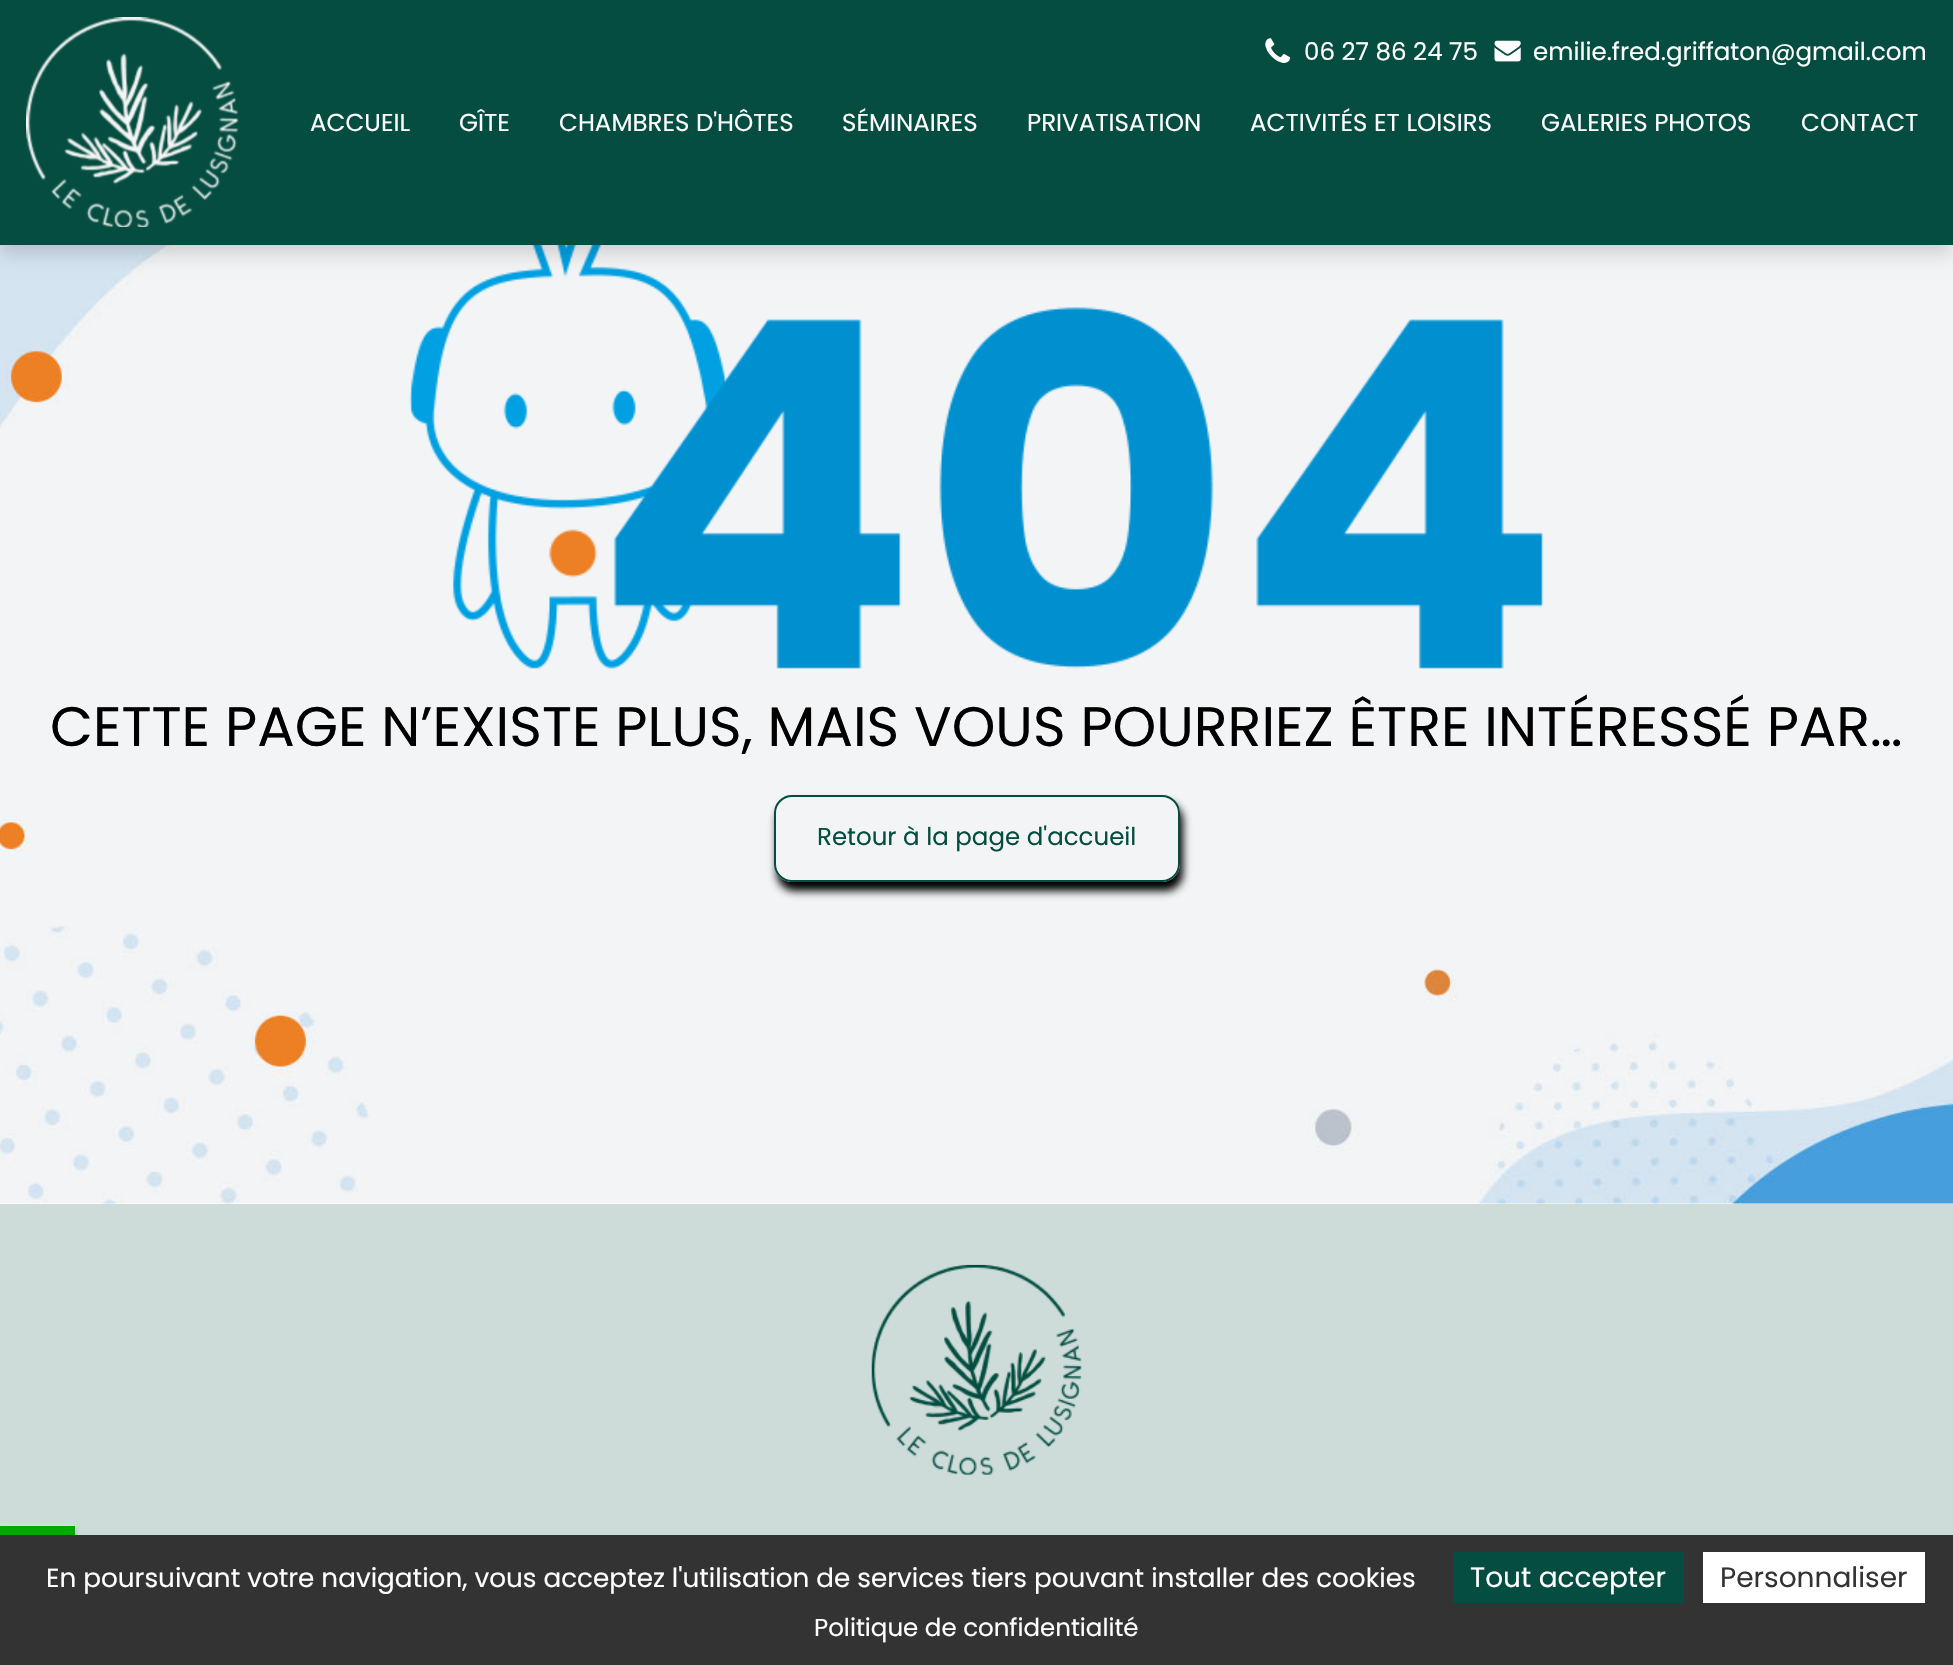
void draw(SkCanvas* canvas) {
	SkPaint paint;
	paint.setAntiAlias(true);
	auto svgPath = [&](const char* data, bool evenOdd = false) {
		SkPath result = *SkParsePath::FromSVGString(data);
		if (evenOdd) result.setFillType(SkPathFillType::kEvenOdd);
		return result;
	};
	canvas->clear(0xffffffff);
	canvas->drawImageRect(SkImages::DeferredFromEncodedData(SkData::MakeFromFileName("img4.png")), SkRect::MakeXYWH(0, 245, 1953, 959), SkSamplingOptions());
	canvas->drawImageRect(SkImages::DeferredFromEncodedData(SkData::MakeFromFileName("img5.png")), SkRect::MakeXYWH(409, 245, 1135, 424), SkSamplingOptions());
	paint.setColor(0x26000000);
	paint.setMaskFilter(SkMaskFilter::MakeBlur(kNormal_SkBlurStyle, 9));
	canvas->drawRect(SkRect::MakeXYWH(0, 9, 1953, 245), paint);
	paint.setMaskFilter(nullptr);
	paint.setColor(0xff044d40);
	canvas->drawRect(SkRect::MakeXYWH(0, 0, 1953, 245), paint);
	canvas->drawImageRect(SkImages::DeferredFromEncodedData(SkData::MakeFromFileName("img1.png")), SkRect::MakeXYWH(26, 17, 213, 210), SkSamplingOptions());
	canvas->drawImageRect(SkImages::DeferredFromEncodedData(SkData::MakeFromFileName("img2.png")), SkRect::MakeXYWH(1265, 38, 25, 25), SkSamplingOptions());
	SkFont f1(fontMgr->matchFamilyStyle("Poppins", SkFontStyle::Normal()), 24.5);
	f1.setSubpixel(true);
	paint.setColor(0xffffffff);
	canvas->drawString("06 27 86 24 75", 1304, 60, f1, paint);
	canvas->drawImageRect(SkImages::DeferredFromEncodedData(SkData::MakeFromFileName("img3.png")), SkRect::MakeXYWH(1494, 40, 27, 22), SkSamplingOptions());
	canvas->drawString("emilie.fred.griffaton@gmail.com", 1533, 60, f1, paint);
	canvas->drawString("ACCUEIL", 310, 131, f1, paint);
	canvas->drawString("GÎTE", 459, 131, f1, paint);
	canvas->drawString("CHAMBRES D'HÔTES", 559, 131, f1, paint);
	canvas->drawString("SÉMINAIRES", 842, 131, f1, paint);
	canvas->drawString("PRIVATISATION", 1027, 131, f1, paint);
	canvas->drawString("ACTIVITÉS ET LOISIRS", 1250, 131, f1, paint);
	canvas->drawString("GALERIES PHOTOS", 1541, 131, f1, paint);
	canvas->drawString("CONTACT", 1801, 131, f1, paint);
	SkFont f2(fontMgr->matchFamilyStyle("Poppins", SkFontStyle::Normal()), 55.6);
	f2.setSubpixel(true);
	paint.setColor(0xff000000);
	canvas->drawString("CETTE PAGE N’EXISTE PLUS, MAIS VOUS POURRIEZ ÊTRE INTÉRESSÉ PAR…", 50, 746, f2, paint);
	canvas->save();
	canvas->clipPath(svgPath("M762 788H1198V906H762ZM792 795H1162C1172 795 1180 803 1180 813V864C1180 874 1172 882 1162 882H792C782 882 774 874 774 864V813C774 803 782 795 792 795Z", true), true);
	paint.setMaskFilter(SkMaskFilter::MakeBlur(kNormal_SkBlurStyle, 4.5));
	canvas->drawRoundRect(SkRect::MakeXYWH(777, 803, 406, 88), 18, 18, paint);
	paint.setMaskFilter(nullptr);
	canvas->restore();
	paint.setStroke(true);
	paint.setStrokeWidth(2);
	paint.setColor(0xff044d40);
	canvas->drawRoundRect(SkRect::MakeXYWH(775, 796, 404, 85), 17, 17, paint);
	paint.setStroke(false);
	canvas->drawString("Retour à la page d'accueil", 817, 845, f1, paint);
	paint.setColor(0xffcddbd9);
	canvas->drawRect(SkRect::MakeXYWH(0, 1204, 1953, 331), paint);
	canvas->drawImageRect(SkImages::DeferredFromEncodedData(SkData::MakeFromFileName("img6.png")), SkRect::MakeXYWH(871, 1264, 211, 211), SkSamplingOptions());
	paint.setColor(0xff555555);
	paint.setMaskFilter(SkMaskFilter::MakeBlur(kNormal_SkBlurStyle, 2));
	canvas->drawRect(SkRect::MakeXYWH(0, 1528, 75, 9), paint);
	paint.setMaskFilter(nullptr);
	paint.setColor(0xffffffff);
	paint.setMaskFilter(SkMaskFilter::MakeBlur(kNormal_SkBlurStyle, 2));
	canvas->drawRect(SkRect::MakeXYWH(0, 1526, 75, 9), paint);
	paint.setMaskFilter(nullptr);
	paint.setColor(0xff00aa00);
	canvas->drawRect(SkRect::MakeXYWH(0, 1526, 75, 9), paint);
	paint.setColor(0xff333333);
	canvas->drawRect(SkRect::MakeXYWH(0, 1535, 1953, 130), paint);
	SkFont f3(fontMgr->matchFamilyStyle("Poppins", SkFontStyle::Normal()), 26.25);
	f3.setSubpixel(true);
	paint.setColor(0xffffffff);
	canvas->drawString("En poursuivant votre navigation, vous acceptez l'utilisation de services tiers pouvant installer des cookies", 46, 1587, f3, paint);
	paint.setColor(0xff044d40);
	canvas->drawRect(SkRect::MakeXYWH(1453, 1552, 231, 51), paint);
	SkFont f4(fontMgr->matchFamilyStyle("Poppins", SkFontStyle::Normal()), 28);
	f4.setSubpixel(true);
	paint.setColor(0xffffffff);
	canvas->drawString("Tout accepter", 1470, 1587, f4, paint);
	canvas->drawRect(SkRect::MakeXYWH(1703, 1552, 222, 51), paint);
	paint.setColor(0xff333333);
	canvas->drawString("Personnaliser", 1720, 1587, f4, paint);
	paint.setColor(0xffffffff);
	canvas->drawString("Politique de confidentialité", 814, 1636, f1, paint);
}
